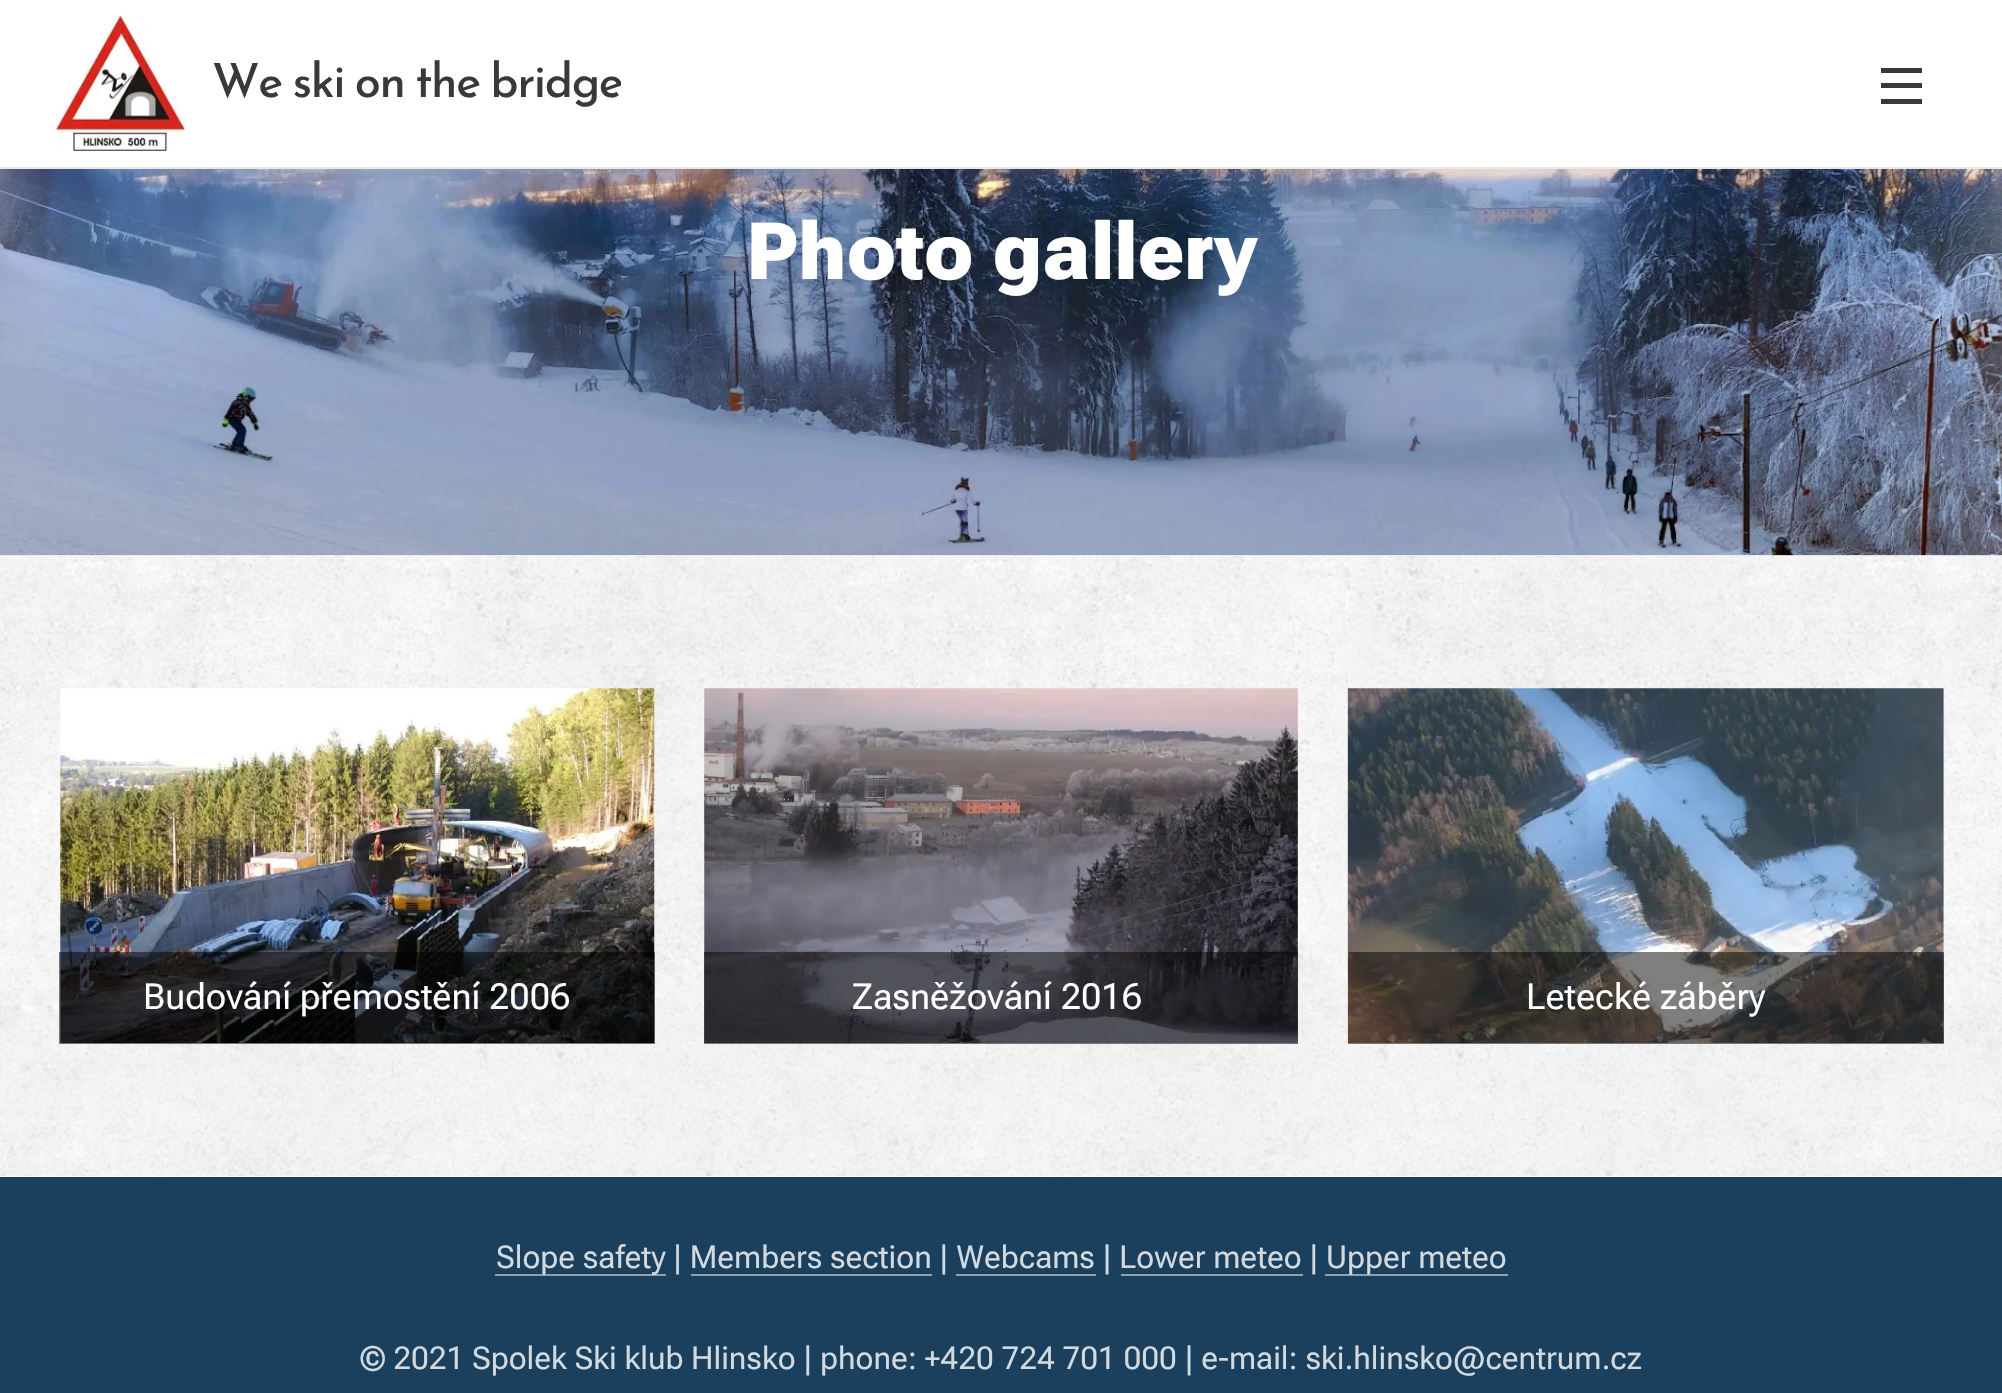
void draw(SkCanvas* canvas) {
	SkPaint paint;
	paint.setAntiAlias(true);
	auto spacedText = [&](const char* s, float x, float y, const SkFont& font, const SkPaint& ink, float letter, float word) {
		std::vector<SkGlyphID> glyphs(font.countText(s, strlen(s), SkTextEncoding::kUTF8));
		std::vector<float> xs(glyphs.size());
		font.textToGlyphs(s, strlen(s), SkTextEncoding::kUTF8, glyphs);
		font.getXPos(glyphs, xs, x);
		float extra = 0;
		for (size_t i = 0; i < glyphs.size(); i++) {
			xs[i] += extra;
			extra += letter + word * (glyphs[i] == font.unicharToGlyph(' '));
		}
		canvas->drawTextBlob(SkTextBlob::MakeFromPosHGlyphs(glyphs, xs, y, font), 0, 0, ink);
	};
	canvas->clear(0xffffffff);
	paint.setColor(0xffe8e8e8);
	canvas->drawRect(SkRect::MakeXYWH(0, 167, 2002, 2), paint);
	canvas->drawImageRect(SkImages::DeferredFromEncodedData(SkData::MakeFromFileName("img1.png")), SkRect::MakeXYWH(56, 15, 129, 136), SkSamplingOptions());
	canvas->save();
	canvas->clipRect(SkRect::MakeXYWH(203, 47, 418, 72));
	SkFont f1(fontMgr->matchFamilyStyle("Josefin Sans", SkFontStyle(500, SkFontStyle::kNormal_Width, SkFontStyle::kUpright_Slant)), 47.25);
	f1.setSubpixel(true);
	paint.setColor(0xff393939);
	spacedText("We ski on the bridge", 212, 97, f1, paint, -1.4, -3);
	canvas->restore();
	canvas->drawRect(SkRect::MakeXYWH(1881, 83, 41, 5), paint);
	canvas->drawRect(SkRect::MakeXYWH(1881, 68, 41, 5), paint);
	canvas->drawRect(SkRect::MakeXYWH(1881, 99, 41, 5), paint);
	canvas->drawImageRect(SkImages::DeferredFromEncodedData(SkData::MakeFromFileName("img2.png")), SkRect::MakeXYWH(0, 169, 2002, 387), SkSamplingOptions());
	SkFont f2(fontMgr->matchFamilyStyle("Roboto Flex", SkFontStyle(900, SkFontStyle::kNormal_Width, SkFontStyle::kUpright_Slant)), 79.25);
	f2.setSubpixel(true);
	paint.setColor(0xffffffff);
	canvas->drawString("Photo gallery", 746, 279, f2, paint);
	canvas->drawImageRect(SkImages::DeferredFromEncodedData(SkData::MakeFromFileName("img3.png")), SkRect::MakeXYWH(0, 555, 2002, 622), SkSamplingOptions());
	canvas->drawImageRect(SkImages::DeferredFromEncodedData(SkData::MakeFromFileName("img4.png")), SkRect::MakeXYWH(60, 688, 595, 356), SkSamplingOptions());
	paint.setColor(0x80000000);
	canvas->drawRect(SkRect::MakeXYWH(59, 952, 596, 92), paint);
	SkFont f3(fontMgr->matchFamilyStyle("Roboto Flex", SkFontStyle::Normal()), 36);
	f3.setSubpixel(true);
	paint.setColor(0xffffffff);
	canvas->drawString("Budování přemostění 2006", 143, 1009, f3, paint);
	canvas->drawImageRect(SkImages::DeferredFromEncodedData(SkData::MakeFromFileName("img5.png")), SkRect::MakeXYWH(704, 688, 594, 356), SkSamplingOptions());
	paint.setColor(0x80000000);
	canvas->drawRect(SkRect::MakeXYWH(704, 952, 594, 92), paint);
	paint.setColor(0xffffffff);
	canvas->drawString("Zasněžování 2016", 852, 1009, f3, paint);
	canvas->drawImageRect(SkImages::DeferredFromEncodedData(SkData::MakeFromFileName("img6.png")), SkRect::MakeXYWH(1347, 688, 597, 356), SkSamplingOptions());
	paint.setColor(0x80000000);
	canvas->drawRect(SkRect::MakeXYWH(1348, 952, 596, 92), paint);
	paint.setColor(0xffffffff);
	canvas->drawString("Letecké záběry", 1526, 1009, f3, paint);
	paint.setColor(0xff1b405d);
	canvas->drawRect(SkRect::MakeXYWH(0, 1177, 2002, 216), paint);
	paint.setColor(0xff8da0ae);
	canvas->drawRect(SkRect::MakeXYWH(495, 1274, 171, 2), paint);
	SkFont f4(fontMgr->matchFamilyStyle("Roboto Flex", SkFontStyle::Normal()), 31.5);
	f4.setSubpixel(true);
	paint.setColor(0xffd2d9df);
	canvas->drawString("Slope safety", 496, 1268, f4, paint);
	canvas->drawString("| Members section | Webcams | Lower meteo |", 673, 1268, f4, paint);
	paint.setColor(0xff8da0ae);
	canvas->drawRect(SkRect::MakeXYWH(1325, 1274, 183, 2), paint);
	paint.setColor(0xffd2d9df);
	canvas->drawString("Upper meteo", 1326, 1268, f4, paint);
	paint.setColor(0xff8da0ae);
	canvas->drawRect(SkRect::MakeXYWH(691, 1274, 241, 2), paint);
	canvas->drawRect(SkRect::MakeXYWH(956, 1274, 140, 2), paint);
	canvas->drawRect(SkRect::MakeXYWH(1121, 1274, 182, 2), paint);
	paint.setColor(0xffd2d9df);
	canvas->drawString("© 2021 Spolek Ski klub Hlinsko | phone: +420 724 701 000 | e-mail: ski.hlinsko@centrum.cz", 360, 1369, f4, paint);
}
